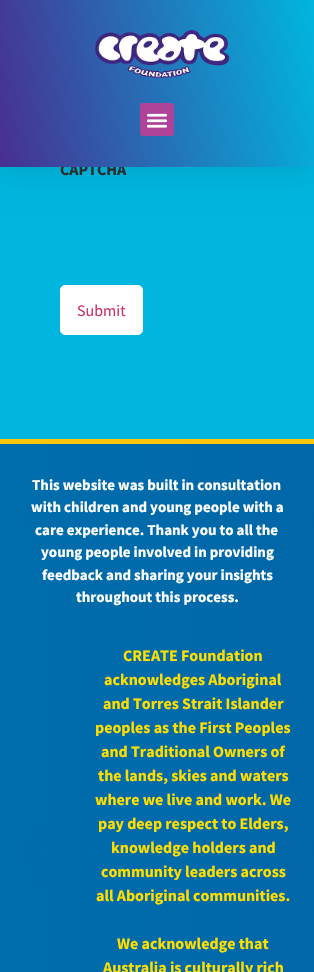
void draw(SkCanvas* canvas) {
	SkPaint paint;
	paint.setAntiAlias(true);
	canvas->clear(0xff00b6de);
	paint.setColor(0x1a000000);
	paint.setMaskFilter(SkMaskFilter::MakeBlur(kNormal_SkBlurStyle, 15));
	canvas->drawRect(SkRect::MakeXYWH(0, 5, 314, 167), paint);
	paint.setMaskFilter(nullptr);
	SkFont f1(fontMgr->matchFamilyStyle("Source Sans Pro", SkFontStyle::Bold()), 16);
	f1.setSubpixel(true);
	paint.setColor(0xff2c2c2c);
	canvas->drawString("CAPTCHA", 60, 175, f1, paint);
	{
		const SkColor colors[] = {0xff492f92, 0xff00b6de};
		const float stops[] = {0, 1};
		const SkPoint ends[] = {{-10, 113}, {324, 54}};
		paint.setShader(SkGradientShader::MakeLinear(ends, colors, stops, 2, SkTileMode::kClamp));
		paint.setAlpha(255);
	}
	canvas->drawRect(SkRect::MakeXYWH(0, 0, 314, 167), paint);
	canvas->drawImageRect(SkImages::DeferredFromEncodedData(SkData::MakeFromFileName("img1.png")), SkRect::MakeXYWH(94, 30, 136, 48), SkSamplingOptions());
	paint.setShader(nullptr);
	paint.setColor(0xffae4399);
	canvas->drawRoundRect(SkRect::MakeXYWH(140, 103, 34, 33), 3, 3, paint);
	canvas->drawImageRect(SkImages::DeferredFromEncodedData(SkData::MakeFromFileName("img2.png")), SkRect::MakeXYWH(146, 113, 22, 15), SkSamplingOptions());
	paint.setColor(0xffffffff);
	canvas->drawRoundRect(SkRect::MakeXYWH(60.5, 285.5, 82, 49), 4.5, 4.5, paint);
	paint.setStroke(true);
	paint.setStrokeWidth(1);
	canvas->drawRoundRect(SkRect::MakeXYWH(60.5, 285.5, 82, 49), 4.5, 4.5, paint);
	SkFont f2(fontMgr->matchFamilyStyle("Source Sans Pro", SkFontStyle::Normal()), 16);
	f2.setSubpixel(true);
	paint.setStroke(false);
	paint.setColor(0xffcc3366);
	canvas->drawString("Submit", 77, 316, f2, paint);
	canvas->drawImageRect(SkImages::DeferredFromEncodedData(SkData::MakeFromFileName("img3.png")), SkRect::MakeXYWH(0, 444, 314, 528), SkSamplingOptions());
	paint.setColor(0xffffc40e);
	canvas->drawRect(SkRect::MakeXYWH(0, 439, 314, 5), paint);
	SkFont f3(fontMgr->matchFamilyStyle("Source Sans Pro", SkFontStyle::Bold()), 15);
	f3.setSubpixel(true);
	paint.setColor(0xffffffff);
	canvas->drawString("This website was built in consultation", 32, 490, f3, paint);
	canvas->drawString("with children and young people with a", 31, 512, f3, paint);
	canvas->drawString("care experience. Thank you to all the", 35, 535, f3, paint);
	canvas->drawString("young people involved in providing", 41, 557, f3, paint);
	canvas->drawString("feedback and sharing your insights", 42, 580, f3, paint);
	canvas->drawString("throughout this process.", 76, 602, f3, paint);
	paint.setColor(0xffffdd00);
	canvas->drawString("CREATE Foundation", 123, 661, f1, paint);
	canvas->drawString("acknowledges Aboriginal", 104, 685, f1, paint);
	canvas->drawString("and Torres Strait Islander", 103, 709, f1, paint);
	canvas->drawString("peoples as the First Peoples", 95, 733, f1, paint);
	canvas->drawString("and Traditional Owners of", 101, 757, f1, paint);
	canvas->drawString("the lands, skies and waters", 98, 781, f1, paint);
	canvas->drawString("where we live and work. We", 95, 805, f1, paint);
	canvas->drawString("pay deep respect to Elders,", 98, 829, f1, paint);
	canvas->drawString("knowledge holders and", 111, 853, f1, paint);
	canvas->drawString("community leaders across", 101, 877, f1, paint);
	canvas->drawString("all Aboriginal communities.", 96, 901, f1, paint);
	canvas->drawString("We acknowledge that", 117, 949, f1, paint);
	canvas->drawString("Australia is culturally rich", 103, 973, f1, paint);
}
